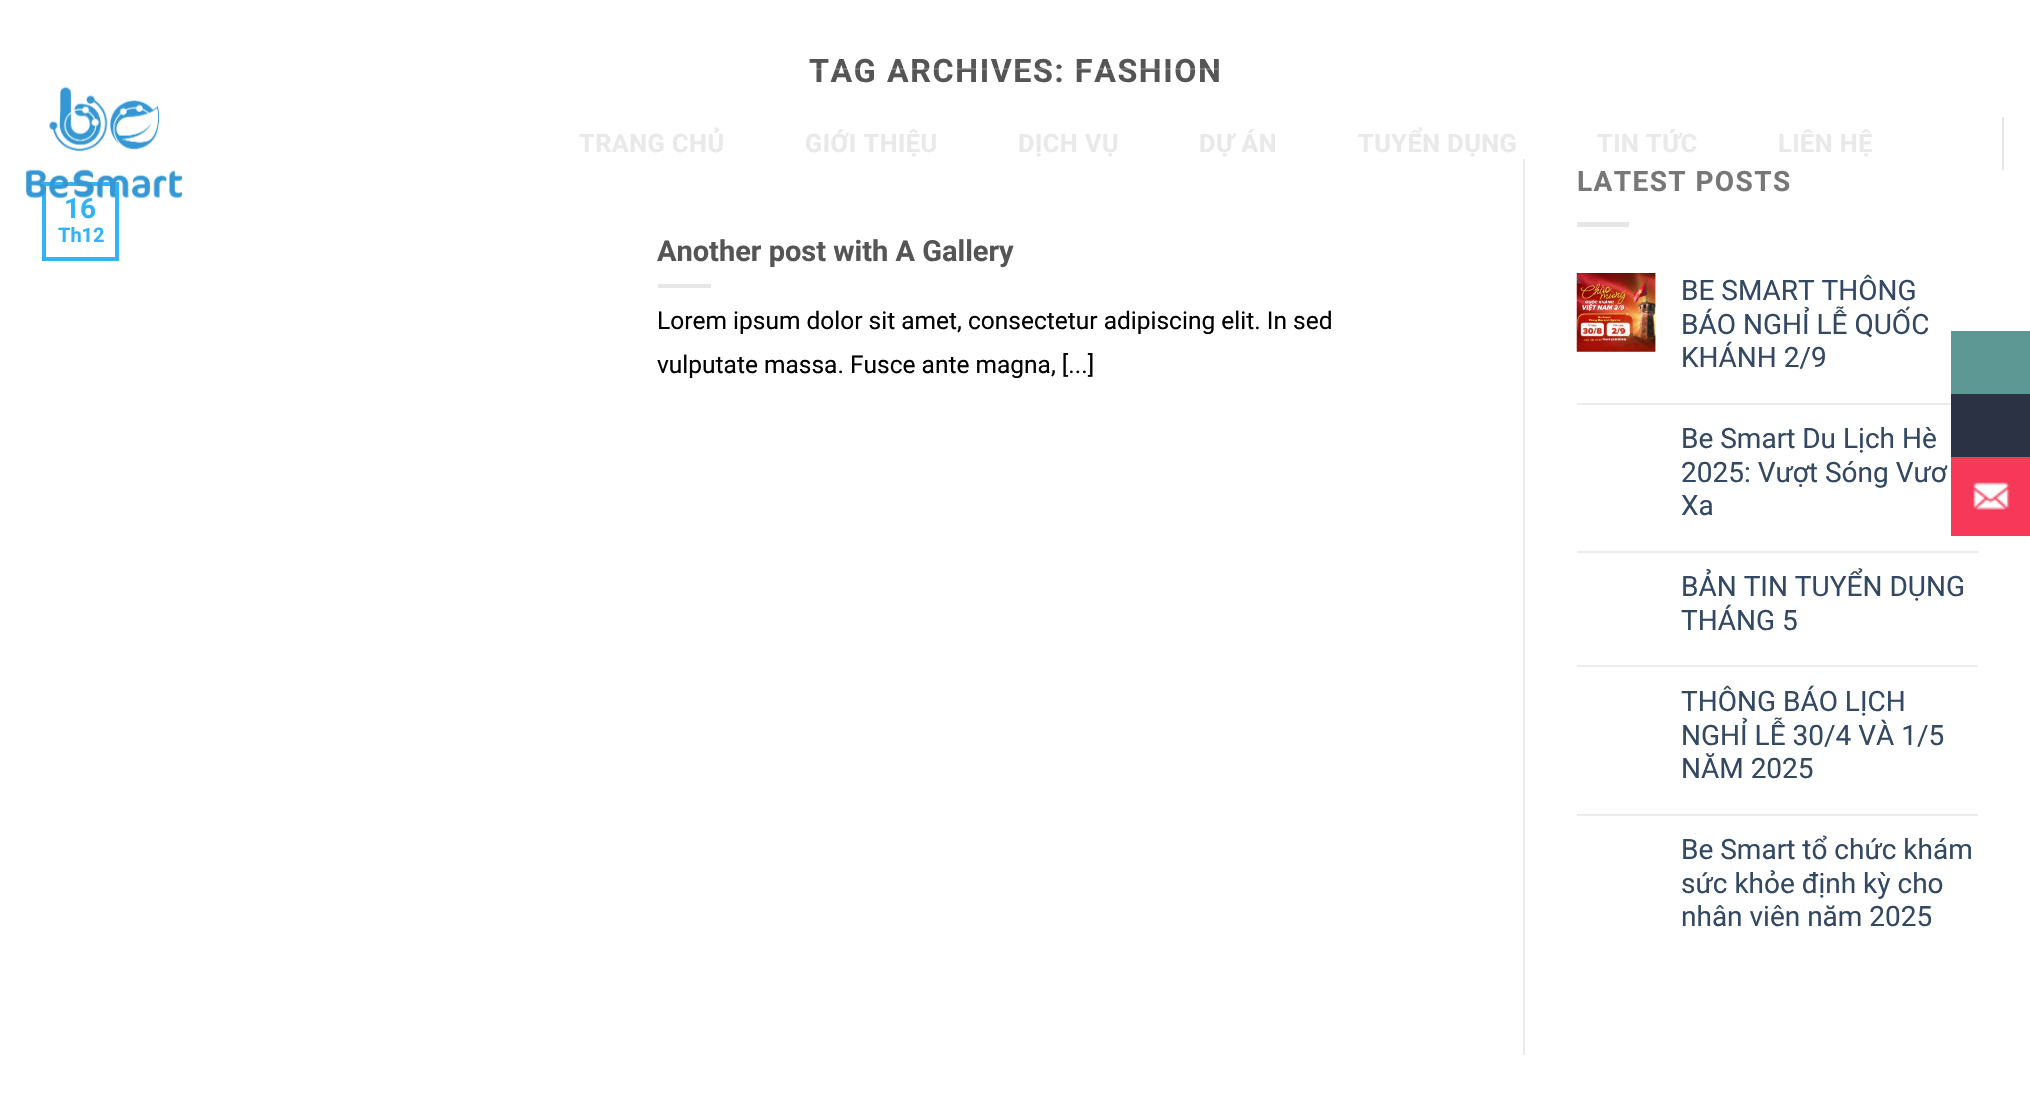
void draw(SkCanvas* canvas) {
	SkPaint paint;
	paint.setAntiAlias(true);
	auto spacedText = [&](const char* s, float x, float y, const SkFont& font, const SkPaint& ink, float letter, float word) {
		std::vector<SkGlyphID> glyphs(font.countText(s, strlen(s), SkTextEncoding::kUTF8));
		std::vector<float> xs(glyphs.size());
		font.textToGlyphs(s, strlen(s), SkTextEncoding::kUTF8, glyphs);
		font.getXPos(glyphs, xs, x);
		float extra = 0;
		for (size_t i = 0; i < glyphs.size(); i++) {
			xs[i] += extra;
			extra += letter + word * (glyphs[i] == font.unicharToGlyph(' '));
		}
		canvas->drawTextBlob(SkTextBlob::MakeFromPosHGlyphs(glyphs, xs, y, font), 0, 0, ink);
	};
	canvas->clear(0xffffffff);
	SkFont f1(fontMgr->matchFamilyStyle("Roboto", SkFontStyle::Bold()), 32.25);
	f1.setSubpixel(true);
	paint.setColor(0xff555555);
	spacedText("TAG ARCHIVES: FASHION", 809, 82, f1, paint, 1.6, 0);
	paint.setStroke(true);
	paint.setStrokeWidth(4);
	paint.setColor(0xff30b3f7);
	canvas->drawRect(SkRect::MakeXYWH(44, 184, 73, 75), paint);
	SkFont f2(fontMgr->matchFamilyStyle("Roboto", SkFontStyle::Bold()), 28);
	f2.setSubpixel(true);
	paint.setStroke(false);
	canvas->drawString("16", 64, 218, f2, paint);
	SkFont f3(fontMgr->matchFamilyStyle("Roboto", SkFontStyle::Bold()), 20);
	f3.setSubpixel(true);
	canvas->drawString("Th12", 58, 242, f3, paint);
	SkFont f4(fontMgr->matchFamilyStyle("Roboto", SkFontStyle::Bold()), 29);
	f4.setSubpixel(true);
	paint.setColor(0xff555555);
	canvas->drawString("Another post with A Gallery", 657, 261, f4, paint);
	paint.setColor(0xffe6e6e6);
	canvas->drawRect(SkRect::MakeXYWH(658, 284, 53, 4), paint);
	SkFont f5(fontMgr->matchFamilyStyle("Roboto", SkFontStyle::Normal()), 24.5);
	f5.setSubpixel(true);
	paint.setColor(0xff000000);
	canvas->drawString("Lorem ipsum dolor sit amet, consectetur adipiscing elit. In sed", 657, 329, f5, paint);
	canvas->drawString("vulputate massa. Fusce ante magna, [...]", 657, 373, f5, paint);
	paint.setColor(0xffececec);
	canvas->drawRect(SkRect::MakeXYWH(1523, 159, 2, 896), paint);
	paint.setColor(0xff777777);
	spacedText("LATEST POSTS", 1577, 191, f2, paint, 1.4, 0);
	paint.setColor(0xffe6e6e6);
	canvas->drawRect(SkRect::MakeXYWH(1577, 222, 52, 5), paint);
	canvas->drawImageRect(SkImages::DeferredFromEncodedData(SkData::MakeFromFileName("img1.png")), SkRect::MakeXYWH(1576, 273, 80, 79), SkSamplingOptions());
	SkFont f6(fontMgr->matchFamilyStyle("Roboto", SkFontStyle::Normal()), 28);
	f6.setSubpixel(true);
	paint.setColor(0xff334862);
	canvas->drawString("BE SMART THÔNG", 1681, 300, f6, paint);
	canvas->drawString("BÁO NGHỈ LỄ QUỐC", 1681, 334, f6, paint);
	canvas->drawString("KHÁNH 2/9", 1681, 367, f6, paint);
	paint.setColor(0xffececec);
	canvas->drawRect(SkRect::MakeXYWH(1577, 403, 374, 2), paint);
	paint.setColor(0xff334862);
	canvas->drawString("Be Smart Du Lịch Hè", 1681, 448, f6, paint);
	canvas->drawString("2025: Vượt Sóng Vươ", 1681, 482, f6, paint);
	canvas->drawString("Xa", 1681, 515, f6, paint);
	paint.setColor(0xffececec);
	canvas->drawRect(SkRect::MakeXYWH(1577, 551, 401, 2), paint);
	paint.setColor(0xff334862);
	canvas->drawString("BẢN TIN TUYỂN DỤNG", 1681, 596, f6, paint);
	canvas->drawString("THÁNG 5", 1681, 630, f6, paint);
	paint.setColor(0xffececec);
	canvas->drawRect(SkRect::MakeXYWH(1577, 665, 401, 2), paint);
	paint.setColor(0xff334862);
	canvas->drawString("THÔNG BÁO LỊCH", 1681, 711, f6, paint);
	canvas->drawString("NGHỈ LỄ 30/4 VÀ 1/5", 1681, 745, f6, paint);
	canvas->drawString("NĂM 2025", 1681, 778, f6, paint);
	paint.setColor(0xffececec);
	canvas->drawRect(SkRect::MakeXYWH(1577, 814, 401, 2), paint);
	paint.setColor(0xff334862);
	canvas->drawString("Be Smart tổ chức khám", 1681, 859, f6, paint);
	canvas->drawString("sức khỏe định kỳ cho", 1681, 893, f6, paint);
	canvas->drawString("nhân viên năm 2025", 1681, 926, f6, paint);
	paint.setColor(0x33ffffff);
	canvas->drawRect(SkRect::MakeXYWH(816, 68, 402, 2), paint);
	canvas->drawImageRect(SkImages::DeferredFromEncodedData(SkData::MakeFromFileName("img2.png")), SkRect::MakeXYWH(26, 87, 156, 112), SkSamplingOptions());
	SkFont f7(fontMgr->matchFamilyStyle("Roboto", SkFontStyle::Bold()), 25.25);
	f7.setSubpixel(true);
	paint.setColor(0xffe9e9e9);
	spacedText("TRANG CHỦ", 579, 152, f7, paint, 0.5, 0);
	spacedText("GIỚI THIỆU", 805, 152, f7, paint, 0.5, 0);
	spacedText("DỊCH VỤ", 1018, 152, f7, paint, 0.5, 0);
	spacedText("DỰ ÁN", 1199, 152, f7, paint, 0.5, 0);
	spacedText("TUYỂN DỤNG", 1358, 152, f7, paint, 0.5, 0);
	spacedText("TIN TỨC", 1597, 152, f7, paint, 0.5, 0);
	spacedText("LIÊN HỆ", 1778, 152, f7, paint, 0.5, 0);
	paint.setColor(0xffe6e6e6);
	canvas->drawRect(SkRect::MakeXYWH(2002, 117, 2, 53), paint);
	paint.setColor(0xff5d9895);
	canvas->drawRect(SkRect::MakeXYWH(1951, 331, 79, 63), paint);
	paint.setColor(0xff2b3244);
	canvas->drawRect(SkRect::MakeXYWH(1951, 394, 79, 63), paint);
	paint.setColor(0xfff73859);
	canvas->drawRect(SkRect::MakeXYWH(1951, 457, 79, 79), paint);
	canvas->drawImageRect(SkImages::DeferredFromEncodedData(SkData::MakeFromFileName("img3.png")), SkRect::MakeXYWH(1973, 482, 37, 28), SkSamplingOptions());
}
